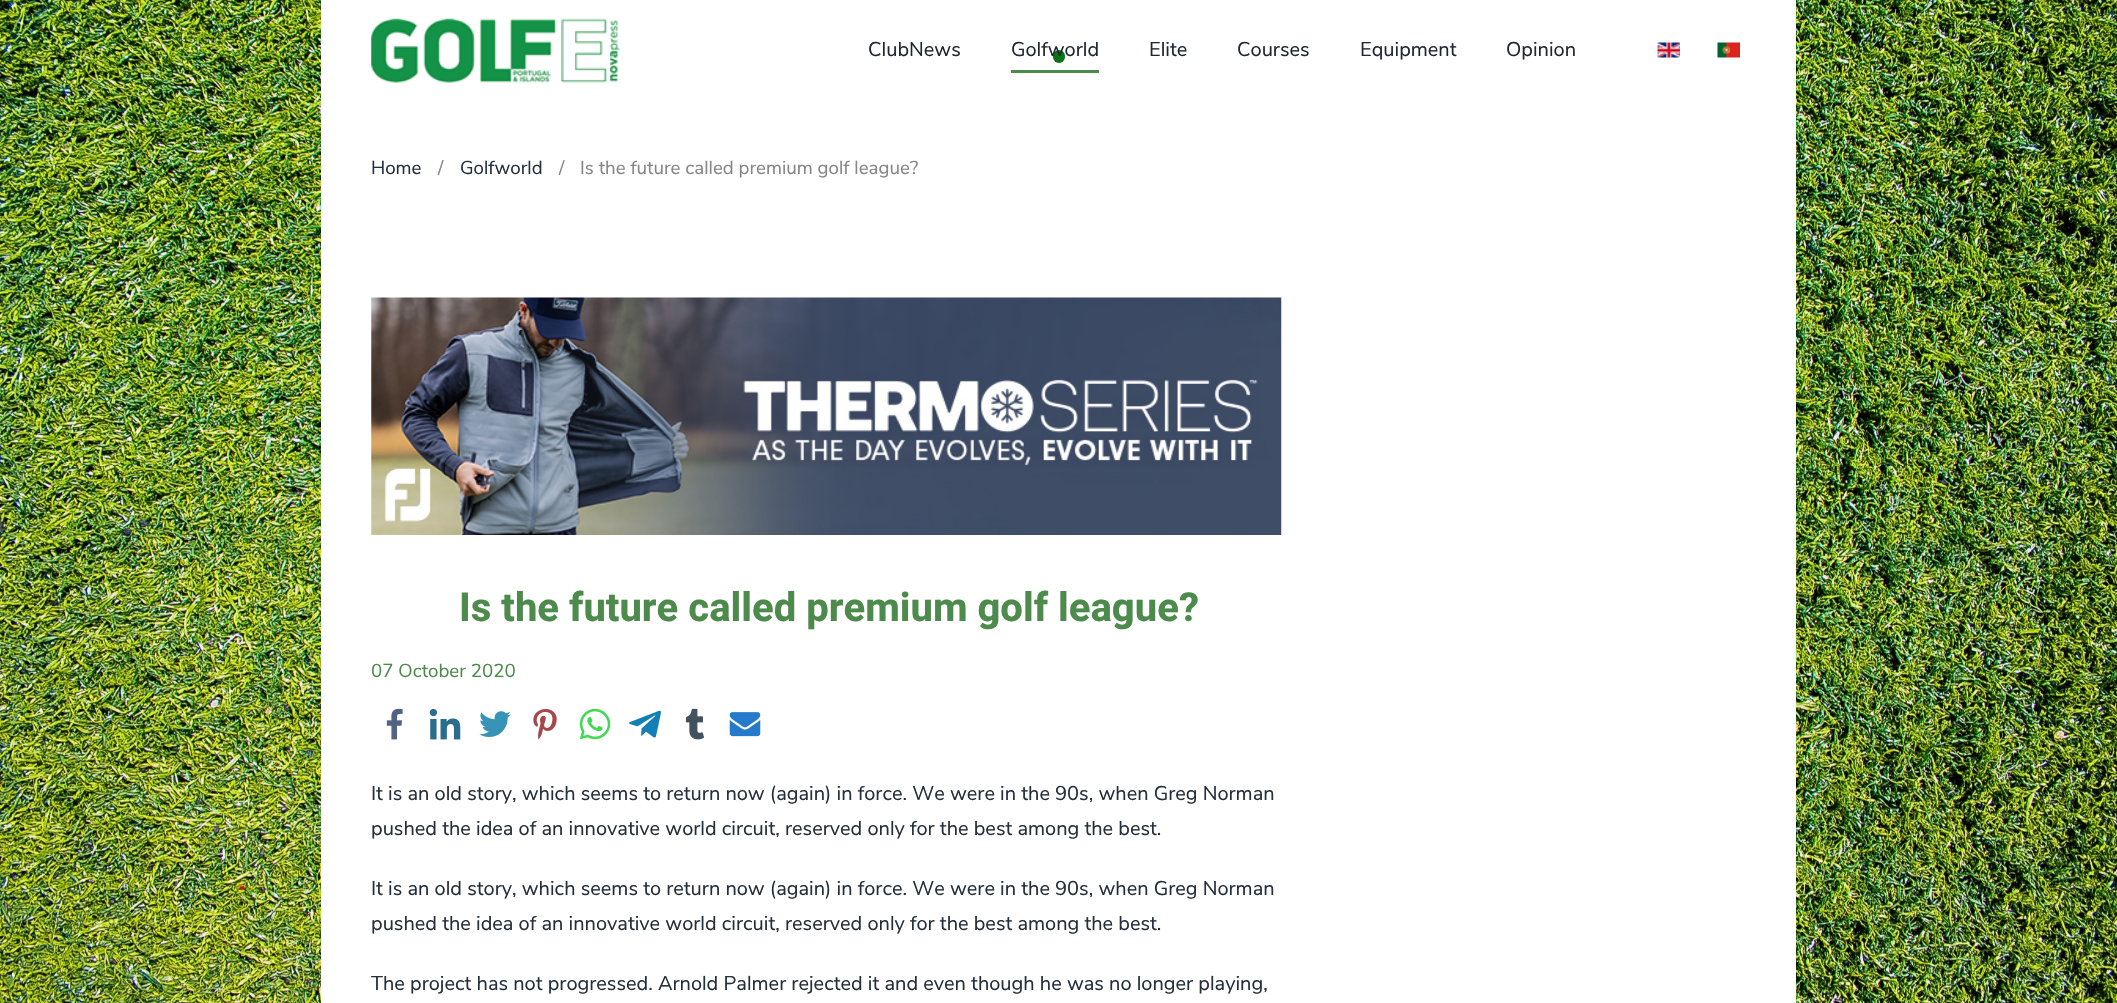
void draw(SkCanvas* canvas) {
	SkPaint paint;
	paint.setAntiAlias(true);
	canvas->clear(0xffffffff);
	canvas->drawImageRect(SkImages::DeferredFromEncodedData(SkData::MakeFromFileName("img1.png")), SkRect::MakeXYWH(0, 0, 2117, 1003), SkSamplingOptions());
	paint.setColor(0xffffffff);
	canvas->drawRect(SkRect::MakeXYWH(321, 0, 1475, 1003), paint);
	canvas->drawImageRect(SkImages::DeferredFromEncodedData(SkData::MakeFromFileName("img2.png")), SkRect::MakeXYWH(371, 18, 250, 65), SkSamplingOptions());
	SkFont f1(fontMgr->matchFamilyStyle("Nunito Sans", SkFontStyle::Normal()), 20);
	f1.setSubpixel(true);
	paint.setColor(0xff1d2733);
	canvas->drawString("ClubNews", 868, 56, f1, paint);
	paint.setColor(0xff077415);
	canvas->drawRoundRect(SkRect::MakeXYWH(1053, 50, 12, 13), 6, 6, paint);
	paint.setColor(0xff1d2733);
	canvas->drawString("Golfworld", 1011, 56, f1, paint);
	paint.setColor(0xff4c8b4c);
	canvas->drawRect(SkRect::MakeXYWH(1011, 70, 88, 3), paint);
	paint.setColor(0xff1d2733);
	canvas->drawString("Elite", 1149, 56, f1, paint);
	canvas->drawString("Courses", 1237, 56, f1, paint);
	canvas->drawString("Equipment", 1360, 56, f1, paint);
	canvas->drawString("Opinion", 1506, 56, f1, paint);
	canvas->drawImageRect(SkImages::DeferredFromEncodedData(SkData::MakeFromFileName("img3.png")), SkRect::MakeXYWH(1657, 42, 23, 16), SkSamplingOptions());
	canvas->drawImageRect(SkImages::DeferredFromEncodedData(SkData::MakeFromFileName("img4.png")), SkRect::MakeXYWH(1717, 42, 23, 16), SkSamplingOptions());
	SkFont f2(fontMgr->matchFamilyStyle("Nunito Sans", SkFontStyle::Normal()), 18.75);
	f2.setSubpixel(true);
	paint.setColor(0xff242f3c);
	canvas->drawString("Home", 371, 174, f2, paint);
	paint.setColor(0xff868686);
	canvas->drawString("/", 438, 174, f2, paint);
	paint.setColor(0xff242f3c);
	canvas->drawString("Golfworld", 460, 174, f2, paint);
	paint.setColor(0xff868686);
	canvas->drawString("/", 559, 174, f2, paint);
	canvas->drawString("Is the future called premium golf league?", 580, 174, f2, paint);
	canvas->drawImageRect(SkImages::DeferredFromEncodedData(SkData::MakeFromFileName("img5.png")), SkRect::MakeXYWH(371, 297, 911, 238), SkSamplingOptions());
	SkFont f3(fontMgr->matchFamilyStyle("Heebo", SkFontStyle::Bold()), 40);
	f3.setSubpixel(true);
	paint.setColor(0xff4c8b4c);
	canvas->drawString("Is the future called premium golf league?", 459, 621, f3, paint);
	canvas->drawString("07 October 2020", 371, 677, f2, paint);
	canvas->drawImageRect(SkImages::DeferredFromEncodedData(SkData::MakeFromFileName("img6.png")), SkRect::MakeXYWH(386, 708, 17, 32), SkSamplingOptions());
	canvas->drawImageRect(SkImages::DeferredFromEncodedData(SkData::MakeFromFileName("img7.png")), SkRect::MakeXYWH(429, 708, 32, 32), SkSamplingOptions());
	canvas->drawImageRect(SkImages::DeferredFromEncodedData(SkData::MakeFromFileName("img8.png")), SkRect::MakeXYWH(479, 711, 32, 26), SkSamplingOptions());
	canvas->drawImageRect(SkImages::DeferredFromEncodedData(SkData::MakeFromFileName("img9.png")), SkRect::MakeXYWH(533, 709, 24, 31), SkSamplingOptions());
	canvas->drawImageRect(SkImages::DeferredFromEncodedData(SkData::MakeFromFileName("img10.png")), SkRect::MakeXYWH(579, 708, 32, 32), SkSamplingOptions());
	canvas->drawImageRect(SkImages::DeferredFromEncodedData(SkData::MakeFromFileName("img11.png")), SkRect::MakeXYWH(629, 710, 32, 28), SkSamplingOptions());
	canvas->drawImageRect(SkImages::DeferredFromEncodedData(SkData::MakeFromFileName("img12.png")), SkRect::MakeXYWH(685, 708, 19, 32), SkSamplingOptions());
	canvas->drawImageRect(SkImages::DeferredFromEncodedData(SkData::MakeFromFileName("img13.png")), SkRect::MakeXYWH(729, 712, 32, 25), SkSamplingOptions());
	paint.setColor(0xff242f3c);
	canvas->drawString("It is an old story, which seems to return now (again) in force. We were in the 90s, when Greg Norman", 371, 800, f1, paint);
	canvas->drawString("pushed the idea of an innovative world circuit, reserved only for the best among the best.", 371, 835, f1, paint);
	canvas->drawString("It is an old story, which seems to return now (again) in force. We were in the 90s, when Greg Norman", 371, 895, f1, paint);
	canvas->drawString("pushed the idea of an innovative world circuit, reserved only for the best among the best.", 371, 930, f1, paint);
	canvas->drawString("The project has not progressed. Arnold Palmer rejected it and even though he was no longer playing,", 371, 990, f1, paint);
}
